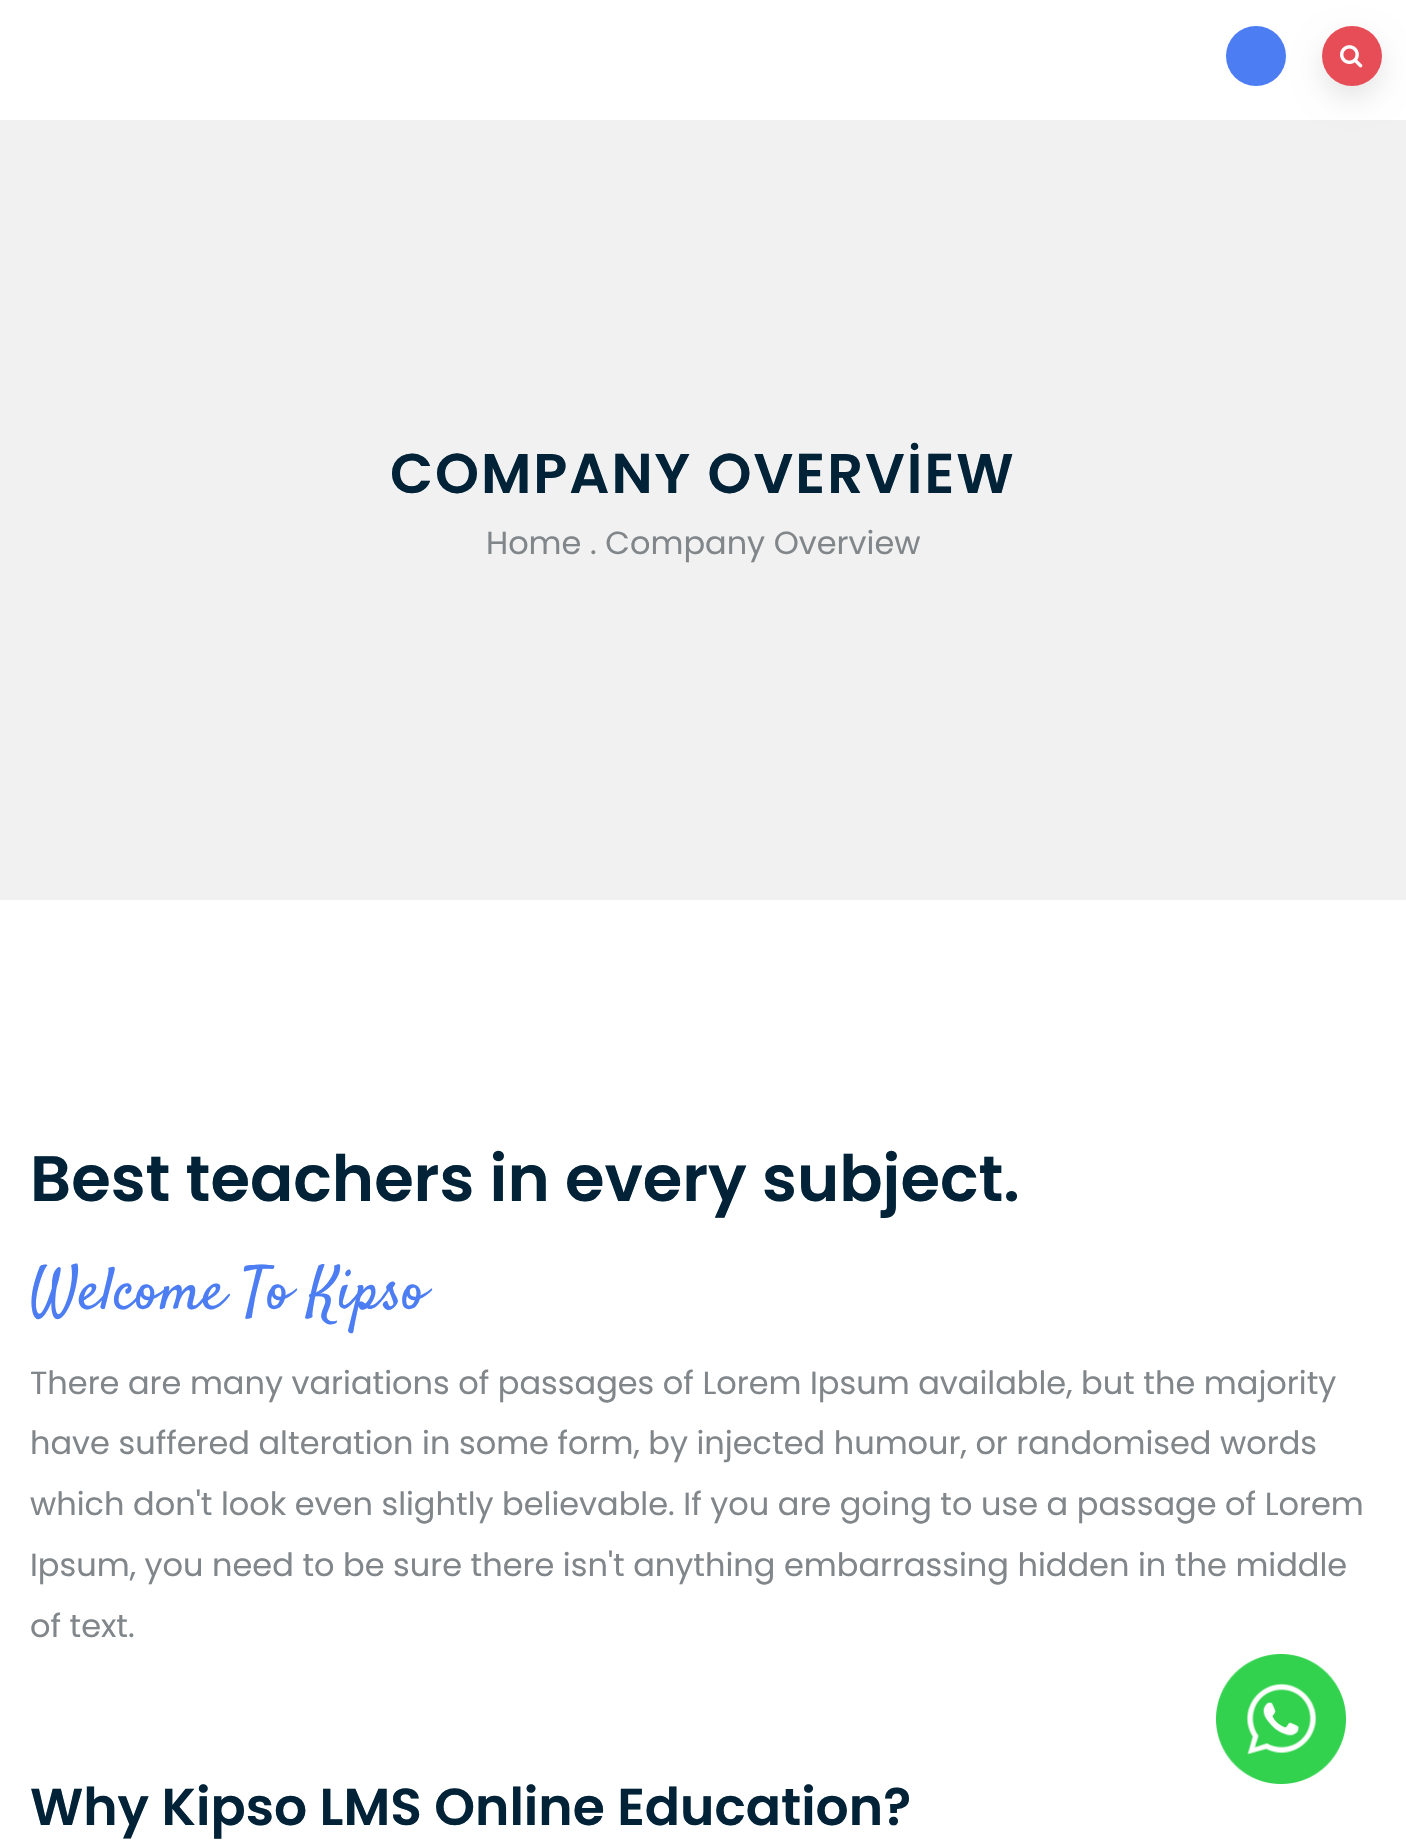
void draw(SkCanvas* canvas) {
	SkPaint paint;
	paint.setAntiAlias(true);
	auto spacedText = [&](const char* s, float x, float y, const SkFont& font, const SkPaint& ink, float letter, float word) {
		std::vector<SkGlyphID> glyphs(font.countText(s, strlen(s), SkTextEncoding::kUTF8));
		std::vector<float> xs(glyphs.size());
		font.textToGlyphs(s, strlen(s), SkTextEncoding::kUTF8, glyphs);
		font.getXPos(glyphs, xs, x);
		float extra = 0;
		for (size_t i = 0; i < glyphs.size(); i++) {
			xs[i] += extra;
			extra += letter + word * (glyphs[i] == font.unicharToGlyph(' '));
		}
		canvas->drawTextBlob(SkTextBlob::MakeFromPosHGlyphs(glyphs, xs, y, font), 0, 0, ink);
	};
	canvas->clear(0xffffffff);
	paint.setColor(0xff4c7df2);
	canvas->drawCircle(1256, 56, 30, paint);
	paint.setColor(0xfff1f1f1);
	canvas->drawRect(SkRect::MakeXYWH(0, 120, 1406, 780), paint);
	paint.setColor(0x1a000000);
	paint.setMaskFilter(SkMaskFilter::MakeBlur(kNormal_SkBlurStyle, 14));
	canvas->drawRoundRect(SkRect::MakeXYWH(1322, 38, 60, 60), 30, 30, paint);
	paint.setMaskFilter(nullptr);
	paint.setColor(0xffe74d57);
	canvas->drawCircle(1352, 56, 30, paint);
	canvas->drawImageRect(SkImages::DeferredFromEncodedData(SkData::MakeFromFileName("img1.png")), SkRect::MakeXYWH(1340, 45, 23, 23), SkSamplingOptions());
	SkFont f1(fontMgr->matchFamilyStyle("Poppins", SkFontStyle(600, SkFontStyle::kNormal_Width, SkFontStyle::kUpright_Slant)), 56);
	f1.setSubpixel(true);
	paint.setColor(0xff012237);
	spacedText("COMPANY OVERVİEW", 390, 493, f1, paint, 2, 0);
	SkFont f2(fontMgr->matchFamilyStyle("Poppins", SkFontStyle::Normal()), 32);
	f2.setSubpixel(true);
	paint.setColor(0xff81868a);
	canvas->drawString("Home . Company Overview", 486, 554, f2, paint);
	SkFont f3(fontMgr->matchFamilyStyle("Poppins", SkFontStyle(600, SkFontStyle::kNormal_Width, SkFontStyle::kUpright_Slant)), 64);
	f3.setSubpixel(true);
	paint.setColor(0xff012237);
	canvas->drawString("Best teachers in every subject.", 30, 1201, f3, paint);
	SkFont f4(fontMgr->matchFamilyStyle("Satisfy", SkFontStyle::Normal()), 60);
	f4.setSubpixel(true);
	paint.setColor(0xff4c7df2);
	canvas->drawString("Welcome To Kipso", 30, 1308, f4, paint);
	paint.setColor(0xff81868a);
	canvas->drawString("There are many variations of passages of Lorem Ipsum available, but the majority", 30, 1394, f2, paint);
	canvas->drawString("have suffered alteration in some form, by injected humour, or randomised words", 30, 1454, f2, paint);
	canvas->drawString("which don't look even slightly believable. If you are going to use a passage of Lorem", 30, 1515, f2, paint);
	canvas->drawString("Ipsum, you need to be sure there isn't anything embarrassing hidden in the middle", 30, 1576, f2, paint);
	canvas->drawString("of text.", 30, 1637, f2, paint);
	SkFont f5(fontMgr->matchFamilyStyle("Poppins", SkFontStyle(600, SkFontStyle::kNormal_Width, SkFontStyle::kUpright_Slant)), 52);
	f5.setSubpixel(true);
	paint.setColor(0xff012237);
	canvas->drawString("Why Kipso LMS Online Education?", 30, 1825, f5, paint);
	canvas->drawImageRect(SkImages::DeferredFromEncodedData(SkData::MakeFromFileName("img2.png")), SkRect::MakeXYWH(1216, 1654, 130, 130), SkSamplingOptions());
}
